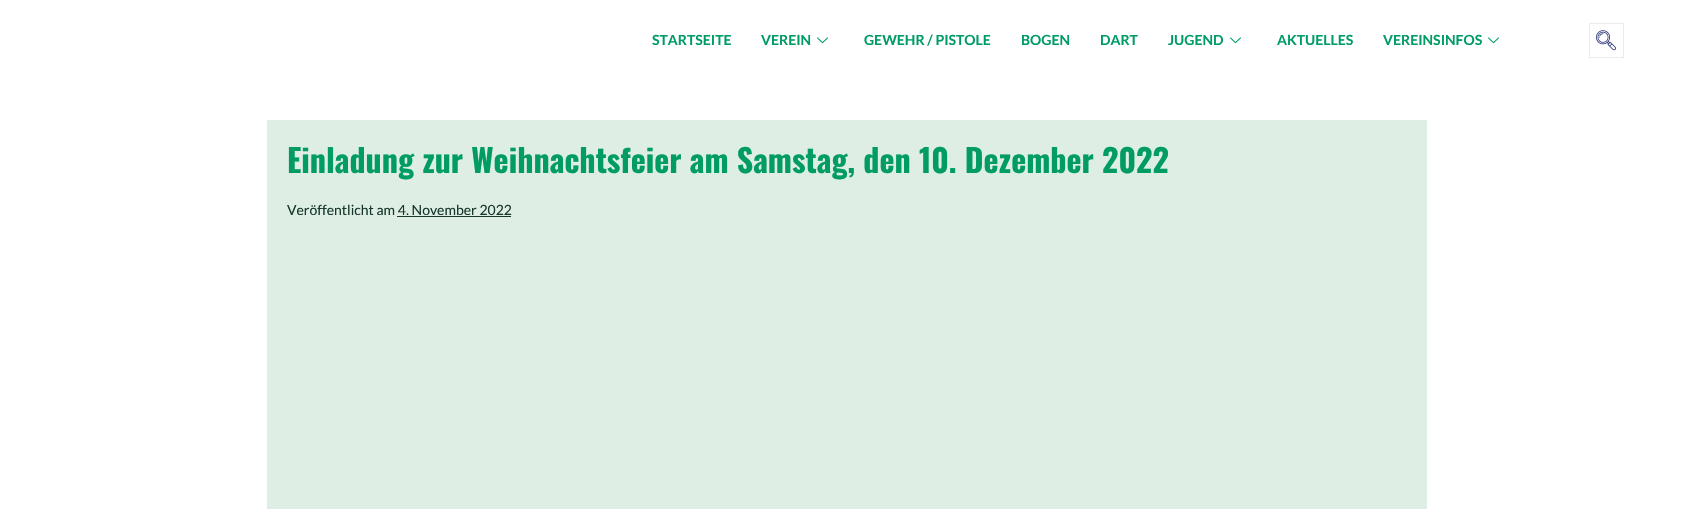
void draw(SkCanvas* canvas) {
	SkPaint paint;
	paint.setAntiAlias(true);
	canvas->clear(0xffffffff);
	SkFont f1(fontMgr->matchFamilyStyle("Lato", SkFontStyle::Bold()), 14);
	f1.setSubpixel(true);
	paint.setColor(0xff009c64);
	canvas->drawString("STARTSEITE", 652, 45, f1, paint);
	canvas->drawString("VEREIN", 761, 45, f1, paint);
	canvas->drawImageRect(SkImages::DeferredFromEncodedData(SkData::MakeFromFileName("img1.png")), SkRect::MakeXYWH(817, 37, 11, 7), SkSamplingOptions());
	canvas->drawString("GEWEHR / PISTOLE", 864, 45, f1, paint);
	canvas->drawString("BOGEN", 1021, 45, f1, paint);
	canvas->drawString("DART", 1100, 45, f1, paint);
	canvas->drawString("JUGEND", 1168, 45, f1, paint);
	canvas->drawImageRect(SkImages::DeferredFromEncodedData(SkData::MakeFromFileName("img1.png")), SkRect::MakeXYWH(1230, 37, 11, 7), SkSamplingOptions());
	canvas->drawString("AKTUELLES", 1277, 45, f1, paint);
	canvas->drawString("VEREINSINFOS", 1383, 45, f1, paint);
	canvas->drawImageRect(SkImages::DeferredFromEncodedData(SkData::MakeFromFileName("img1.png")), SkRect::MakeXYWH(1488, 37, 11, 7), SkSamplingOptions());
	paint.setStroke(true);
	paint.setStrokeWidth(1);
	paint.setColor(0xffeaebf1);
	canvas->drawRect(SkRect::MakeXYWH(1589.5, 23.5, 34, 34), paint);
	canvas->drawImageRect(SkImages::DeferredFromEncodedData(SkData::MakeFromFileName("img2.png")), SkRect::MakeXYWH(1596, 30, 20, 21), SkSamplingOptions());
	paint.setStroke(false);
	paint.setColor(0xffdeeee4);
	canvas->drawRect(SkRect::MakeXYWH(267, 120, 1160, 389), paint);
	SkFont f2(fontMgr->matchFamilyStyle("Oswald", SkFontStyle::Bold()), 32);
	f2.setSubpixel(true);
	paint.setColor(0xff009c64);
	canvas->drawString("Einladung zur Weihnachtsfeier am Samstag, den 10. Dezember 2022", 287, 173, f2, paint);
	SkFont f3(fontMgr->matchFamilyStyle("Lato", SkFontStyle::Normal()), 14);
	f3.setSubpixel(true);
	paint.setColor(0xff16372a);
	canvas->drawString("Veröffentlicht am 4. November 2022", 287, 215, f3, paint);
	canvas->drawRect(SkRect::MakeXYWH(397, 216, 114, 1), paint);
}
